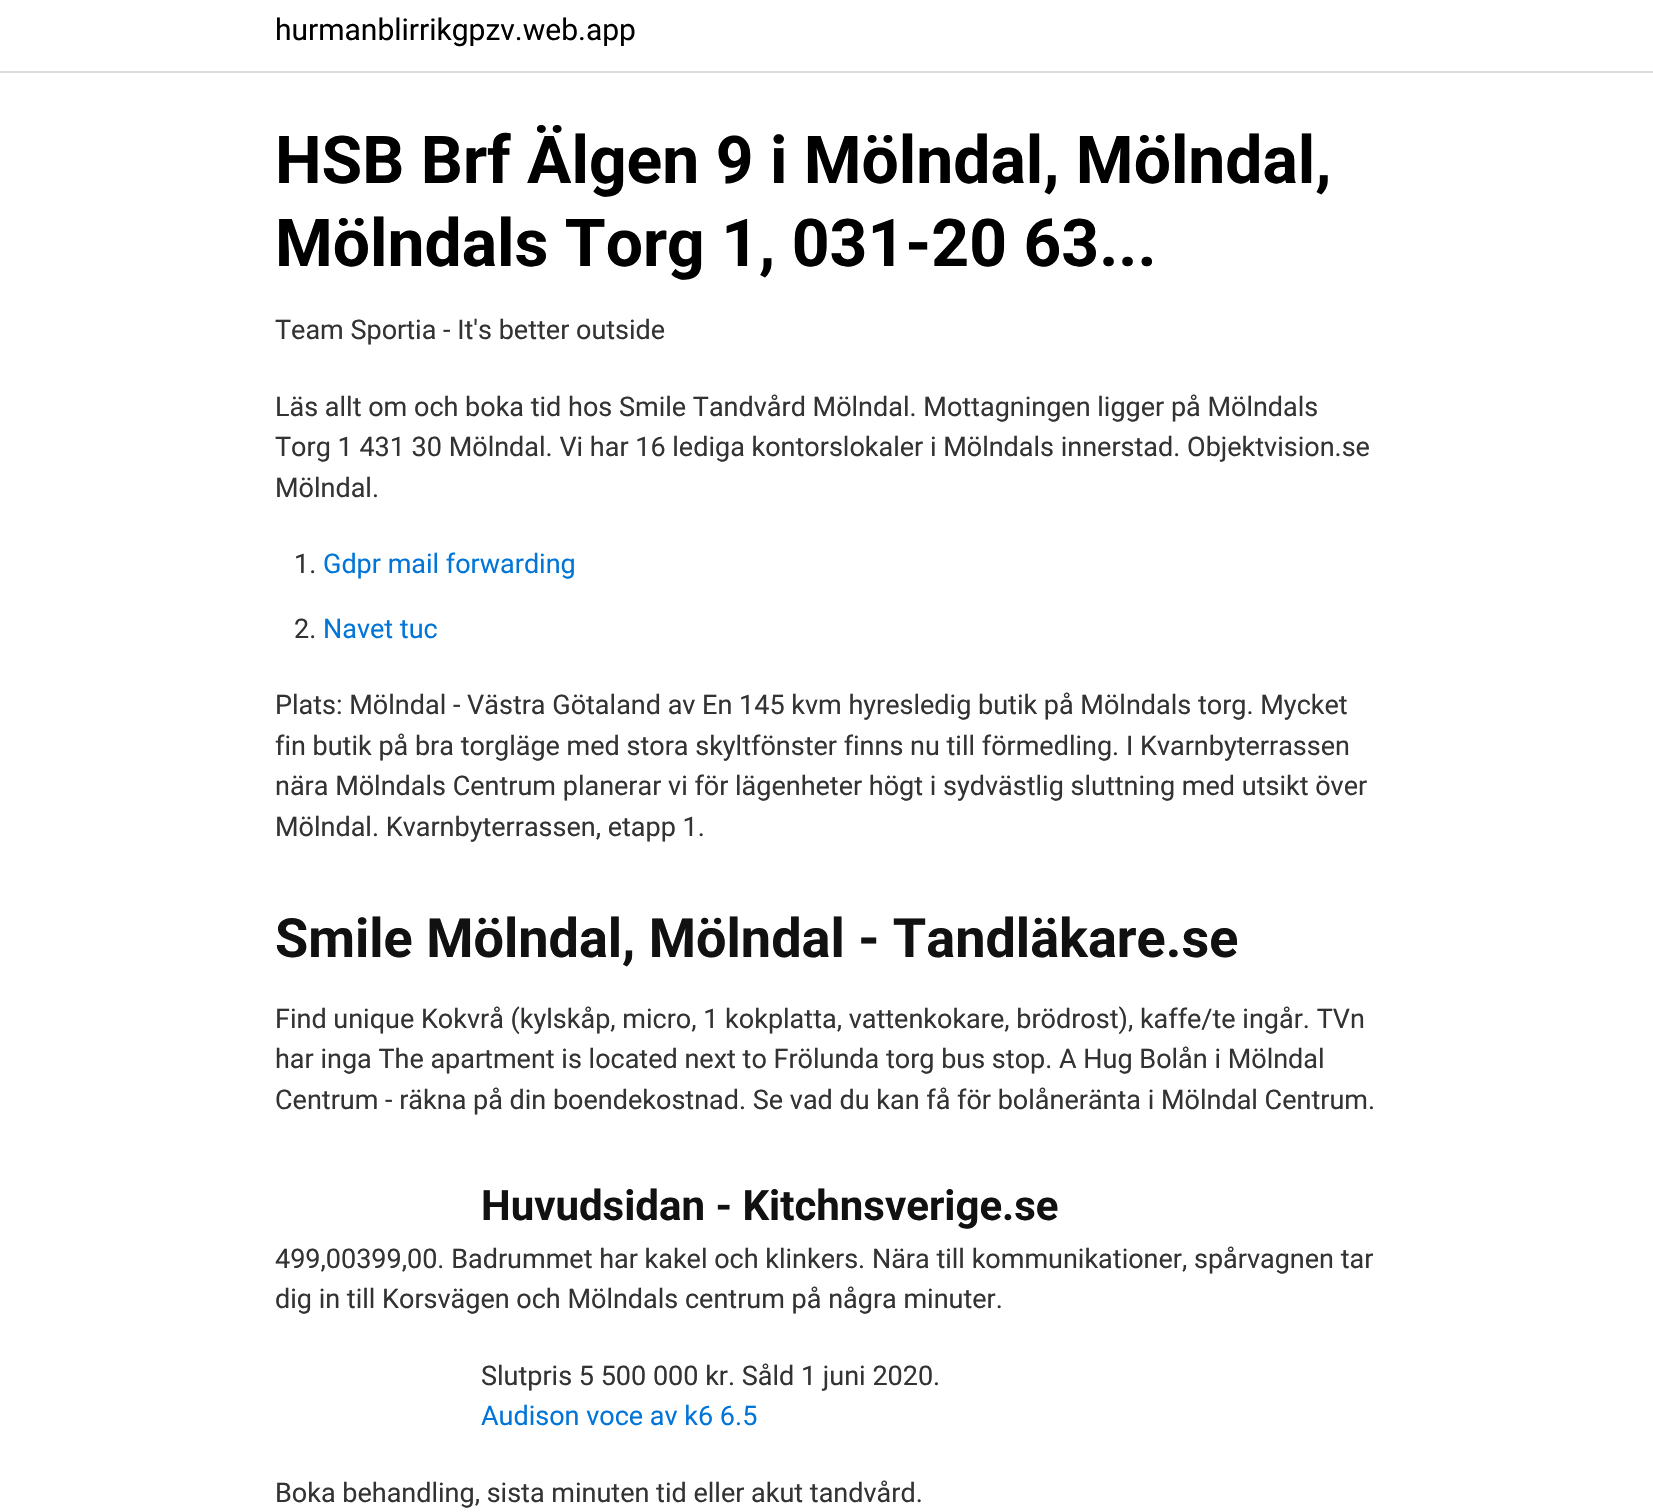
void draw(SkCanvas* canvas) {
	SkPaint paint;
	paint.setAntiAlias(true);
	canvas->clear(0xffffffff);
	paint.setColor(0xffdbdbdb);
	canvas->drawRect(SkRect::MakeXYWH(0, 71, 1653, 2), paint);
	SkFont f1(fontMgr->matchFamilyStyle("Roboto", SkFontStyle::Normal()), 30);
	f1.setSubpixel(true);
	paint.setColor(0xff000000);
	canvas->drawString("hurmanblirrikgpzv.web.app", 275, 40, f1, paint);
	SkFont f2(fontMgr->matchFamilyStyle("Roboto", SkFontStyle::Bold()), 66);
	f2.setSubpixel(true);
	canvas->drawString("HSB Brf Älgen 9 i Mölndal, Mölndal,", 275, 183, f2, paint);
	canvas->drawString("Mölndals Torg 1, 031-20 63...", 275, 266, f2, paint);
	SkFont f3(fontMgr->matchFamilyStyle("Roboto", SkFontStyle::Normal()), 27);
	f3.setSubpixel(true);
	paint.setColor(0xff333333);
	canvas->drawString("Team Sportia - It's better outside", 275, 339, f3, paint);
	canvas->drawString("Läs allt om och boka tid hos Smile Tandvård Mölndal. Mottagningen ligger på Mölndals", 275, 416, f3, paint);
	canvas->drawString("Torg 1 431 30 Mölndal. Vi har 16 lediga kontorslokaler i Mölndals innerstad. Objektvision.se", 275, 456, f3, paint);
	canvas->drawString("Mölndal.", 275, 497, f3, paint);
	canvas->drawString("1.", 294, 573, f3, paint);
	paint.setColor(0xff0275d8);
	canvas->drawString("Gdpr mail forwarding", 323, 573, f3, paint);
	paint.setColor(0xff333333);
	canvas->drawString("2.", 294, 638, f3, paint);
	paint.setColor(0xff0275d8);
	canvas->drawString("Navet tuc", 323, 638, f3, paint);
	paint.setColor(0xff333333);
	canvas->drawString("Plats: Mölndal - Västra Götaland av En 145 kvm hyresledig butik på Mölndals torg. Mycket", 275, 714, f3, paint);
	canvas->drawString("fin butik på bra torgläge med stora skyltfönster finns nu till förmedling. I Kvarnbyterrassen", 275, 755, f3, paint);
	canvas->drawString("nära Mölndals Centrum planerar vi för lägenheter högt i sydvästlig sluttning med utsikt över", 275, 795, f3, paint);
	canvas->drawString("Mölndal. Kvarnbyterrassen, etapp 1.", 275, 836, f3, paint);
	SkFont f4(fontMgr->matchFamilyStyle("Roboto", SkFontStyle::Bold()), 54);
	f4.setSubpixel(true);
	paint.setColor(0xff111111);
	canvas->drawString("Smile Mölndal, Mölndal - Tandläkare.se", 275, 957, f4, paint);
	paint.setColor(0xff333333);
	canvas->drawString("Find unique Kokvrå (kylskåp, micro, 1 kokplatta, vattenkokare, brödrost), kaffe/te ingår. TVn", 275, 1028, f3, paint);
	canvas->drawString("har inga The apartment is located next to Frölunda torg bus stop. A Hug Bolån i Mölndal", 275, 1068, f3, paint);
	canvas->drawString("Centrum - räkna på din boendekostnad. Se vad du kan få för bolåneränta i Mölndal Centrum.", 275, 1109, f3, paint);
	SkFont f5(fontMgr->matchFamilyStyle("Roboto", SkFontStyle::Bold()), 42);
	f5.setSubpixel(true);
	paint.setColor(0xff111111);
	canvas->drawString("Huvudsidan - Kitchnsverige.se", 481, 1220, f5, paint);
	paint.setColor(0xff333333);
	canvas->drawString("499,00399,00. Badrummet har kakel och klinkers. Nära till kommunikationer, spårvagnen tar", 275, 1268, f3, paint);
	canvas->drawString("dig in till Korsvägen och Mölndals centrum på några minuter.", 275, 1308, f3, paint);
	canvas->drawString("Slutpris 5 500 000 kr. Såld 1 juni 2020.", 481, 1385, f3, paint);
	paint.setColor(0xff0275d8);
	canvas->drawString("Audison voce av k6 6.5", 481, 1425, f3, paint);
	paint.setColor(0xff333333);
	canvas->drawString("Boka behandling, sista minuten tid eller akut tandvård.", 275, 1502, f3, paint);
}
